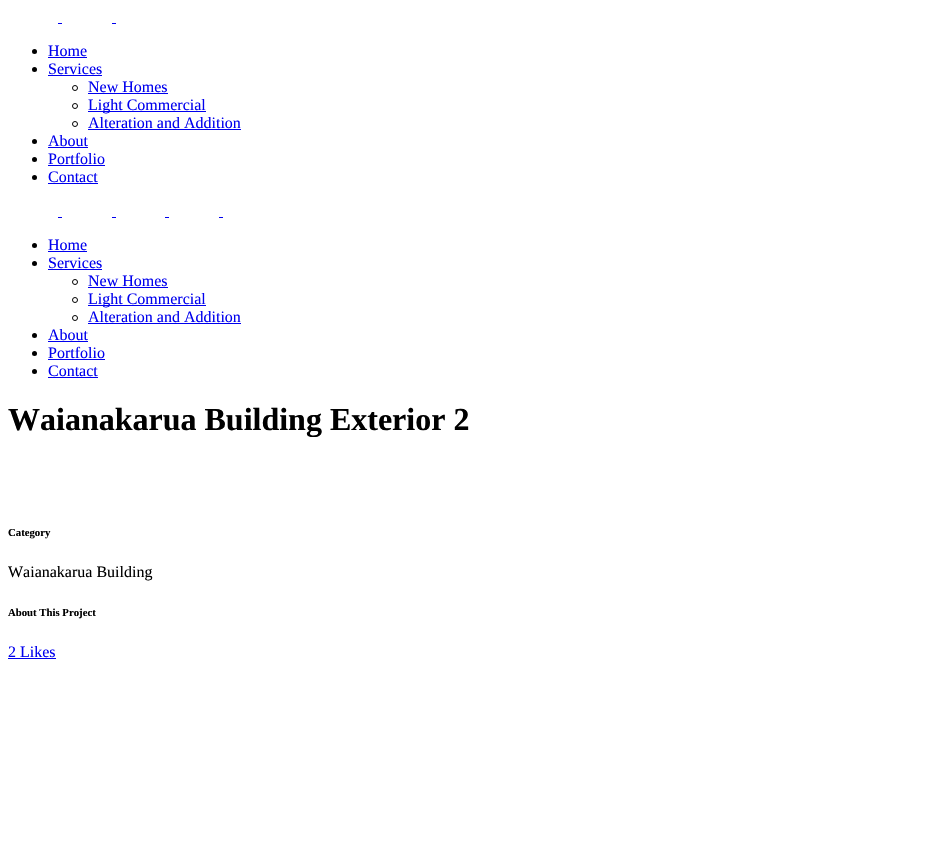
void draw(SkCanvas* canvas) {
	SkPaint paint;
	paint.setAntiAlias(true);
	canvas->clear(0xffffffff);
	paint.setColor(0xff0000ee);
	canvas->drawRect(SkRect::MakeXYWH(58, 23, 4, 1), paint);
	canvas->drawRect(SkRect::MakeXYWH(112, 23, 4, 1), paint);
	paint.setColor(0xff000000);
	canvas->drawCircle(34.5, 51.5, 2.5, paint);
	SkFont f1(fontMgr->matchFamilyStyle("Liberation Serif", SkFontStyle::Normal()), 16);
	f1.setSubpixel(true);
	paint.setColor(0xff0000ee);
	canvas->drawString("Home", 48, 56, f1, paint);
	canvas->drawRect(SkRect::MakeXYWH(48, 57, 39, 1), paint);
	paint.setColor(0xff000000);
	canvas->drawCircle(34.5, 69.5, 2.5, paint);
	paint.setColor(0xff0000ee);
	canvas->drawString("Services", 48, 74, f1, paint);
	canvas->drawRect(SkRect::MakeXYWH(48, 75, 54, 1), paint);
	paint.setStroke(true);
	paint.setStrokeWidth(1);
	paint.setColor(0xff000000);
	canvas->drawCircle(75, 88, 2.5, paint);
	paint.setStroke(false);
	paint.setColor(0xff0000ee);
	canvas->drawString("New Homes", 88, 92, f1, paint);
	canvas->drawRect(SkRect::MakeXYWH(88, 93, 80, 1), paint);
	paint.setStroke(true);
	paint.setColor(0xff000000);
	canvas->drawCircle(75, 106, 2.5, paint);
	paint.setStroke(false);
	paint.setColor(0xff0000ee);
	canvas->drawRect(SkRect::MakeXYWH(88, 111, 118, 1), paint);
	canvas->drawString("Light Commercial", 88, 110, f1, paint);
	paint.setStroke(true);
	paint.setColor(0xff000000);
	canvas->drawCircle(75, 124, 2.5, paint);
	paint.setStroke(false);
	paint.setColor(0xff0000ee);
	canvas->drawString("Alteration and Addition", 88, 128, f1, paint);
	canvas->drawRect(SkRect::MakeXYWH(88, 129, 153, 1), paint);
	paint.setColor(0xff000000);
	canvas->drawCircle(34.5, 141.5, 2.5, paint);
	paint.setColor(0xff0000ee);
	canvas->drawString("About", 48, 146, f1, paint);
	canvas->drawRect(SkRect::MakeXYWH(48, 147, 40, 1), paint);
	paint.setColor(0xff000000);
	canvas->drawCircle(34.5, 159.5, 2.5, paint);
	paint.setColor(0xff0000ee);
	canvas->drawString("Portfolio", 48, 164, f1, paint);
	canvas->drawRect(SkRect::MakeXYWH(48, 165, 57, 1), paint);
	paint.setColor(0xff000000);
	canvas->drawCircle(34.5, 177.5, 2.5, paint);
	paint.setColor(0xff0000ee);
	canvas->drawString("Contact", 48, 182, f1, paint);
	canvas->drawRect(SkRect::MakeXYWH(48, 183, 50, 1), paint);
	canvas->drawRect(SkRect::MakeXYWH(58, 217, 4, 1), paint);
	canvas->drawRect(SkRect::MakeXYWH(112, 217, 4, 1), paint);
	canvas->drawRect(SkRect::MakeXYWH(165, 217, 4, 1), paint);
	canvas->drawRect(SkRect::MakeXYWH(219, 217, 4, 1), paint);
	paint.setColor(0xff000000);
	canvas->drawCircle(34.5, 245.5, 2.5, paint);
	paint.setColor(0xff0000ee);
	canvas->drawString("Home", 48, 250, f1, paint);
	canvas->drawRect(SkRect::MakeXYWH(48, 251, 39, 1), paint);
	paint.setColor(0xff000000);
	canvas->drawCircle(34.5, 263.5, 2.5, paint);
	paint.setColor(0xff0000ee);
	canvas->drawString("Services", 48, 268, f1, paint);
	canvas->drawRect(SkRect::MakeXYWH(48, 269, 54, 1), paint);
	paint.setStroke(true);
	paint.setColor(0xff000000);
	canvas->drawCircle(75, 282, 2.5, paint);
	paint.setStroke(false);
	paint.setColor(0xff0000ee);
	canvas->drawString("New Homes", 88, 286, f1, paint);
	canvas->drawRect(SkRect::MakeXYWH(88, 287, 80, 1), paint);
	paint.setStroke(true);
	paint.setColor(0xff000000);
	canvas->drawCircle(75, 300, 2.5, paint);
	paint.setStroke(false);
	paint.setColor(0xff0000ee);
	canvas->drawRect(SkRect::MakeXYWH(88, 305, 118, 1), paint);
	canvas->drawString("Light Commercial", 88, 304, f1, paint);
	paint.setStroke(true);
	paint.setColor(0xff000000);
	canvas->drawCircle(75, 318, 2.5, paint);
	paint.setStroke(false);
	paint.setColor(0xff0000ee);
	canvas->drawString("Alteration and Addition", 88, 322, f1, paint);
	canvas->drawRect(SkRect::MakeXYWH(88, 323, 153, 1), paint);
	paint.setColor(0xff000000);
	canvas->drawCircle(34.5, 335.5, 2.5, paint);
	paint.setColor(0xff0000ee);
	canvas->drawString("About", 48, 340, f1, paint);
	canvas->drawRect(SkRect::MakeXYWH(48, 341, 40, 1), paint);
	paint.setColor(0xff000000);
	canvas->drawCircle(34.5, 353.5, 2.5, paint);
	paint.setColor(0xff0000ee);
	canvas->drawString("Portfolio", 48, 358, f1, paint);
	canvas->drawRect(SkRect::MakeXYWH(48, 359, 57, 1), paint);
	paint.setColor(0xff000000);
	canvas->drawCircle(34.5, 371.5, 2.5, paint);
	paint.setColor(0xff0000ee);
	canvas->drawString("Contact", 48, 376, f1, paint);
	canvas->drawRect(SkRect::MakeXYWH(48, 377, 50, 1), paint);
	SkFont f2(fontMgr->matchFamilyStyle("Liberation Serif", SkFontStyle::Bold()), 32);
	f2.setSubpixel(true);
	paint.setColor(0xff000000);
	canvas->drawString("Waianakarua Building Exterior 2", 8, 430, f2, paint);
	SkFont f3(fontMgr->matchFamilyStyle("Liberation Serif", SkFontStyle::Bold()), 10.75);
	f3.setSubpixel(true);
	canvas->drawString("Category", 8, 536, f3, paint);
	canvas->drawString("Waianakarua Building", 8, 577, f1, paint);
	canvas->drawString("About This Project", 8, 616, f3, paint);
	paint.setColor(0xff0000ee);
	canvas->drawString("2 Likes", 8, 657, f1, paint);
	canvas->drawRect(SkRect::MakeXYWH(8, 658, 48, 1), paint);
}
